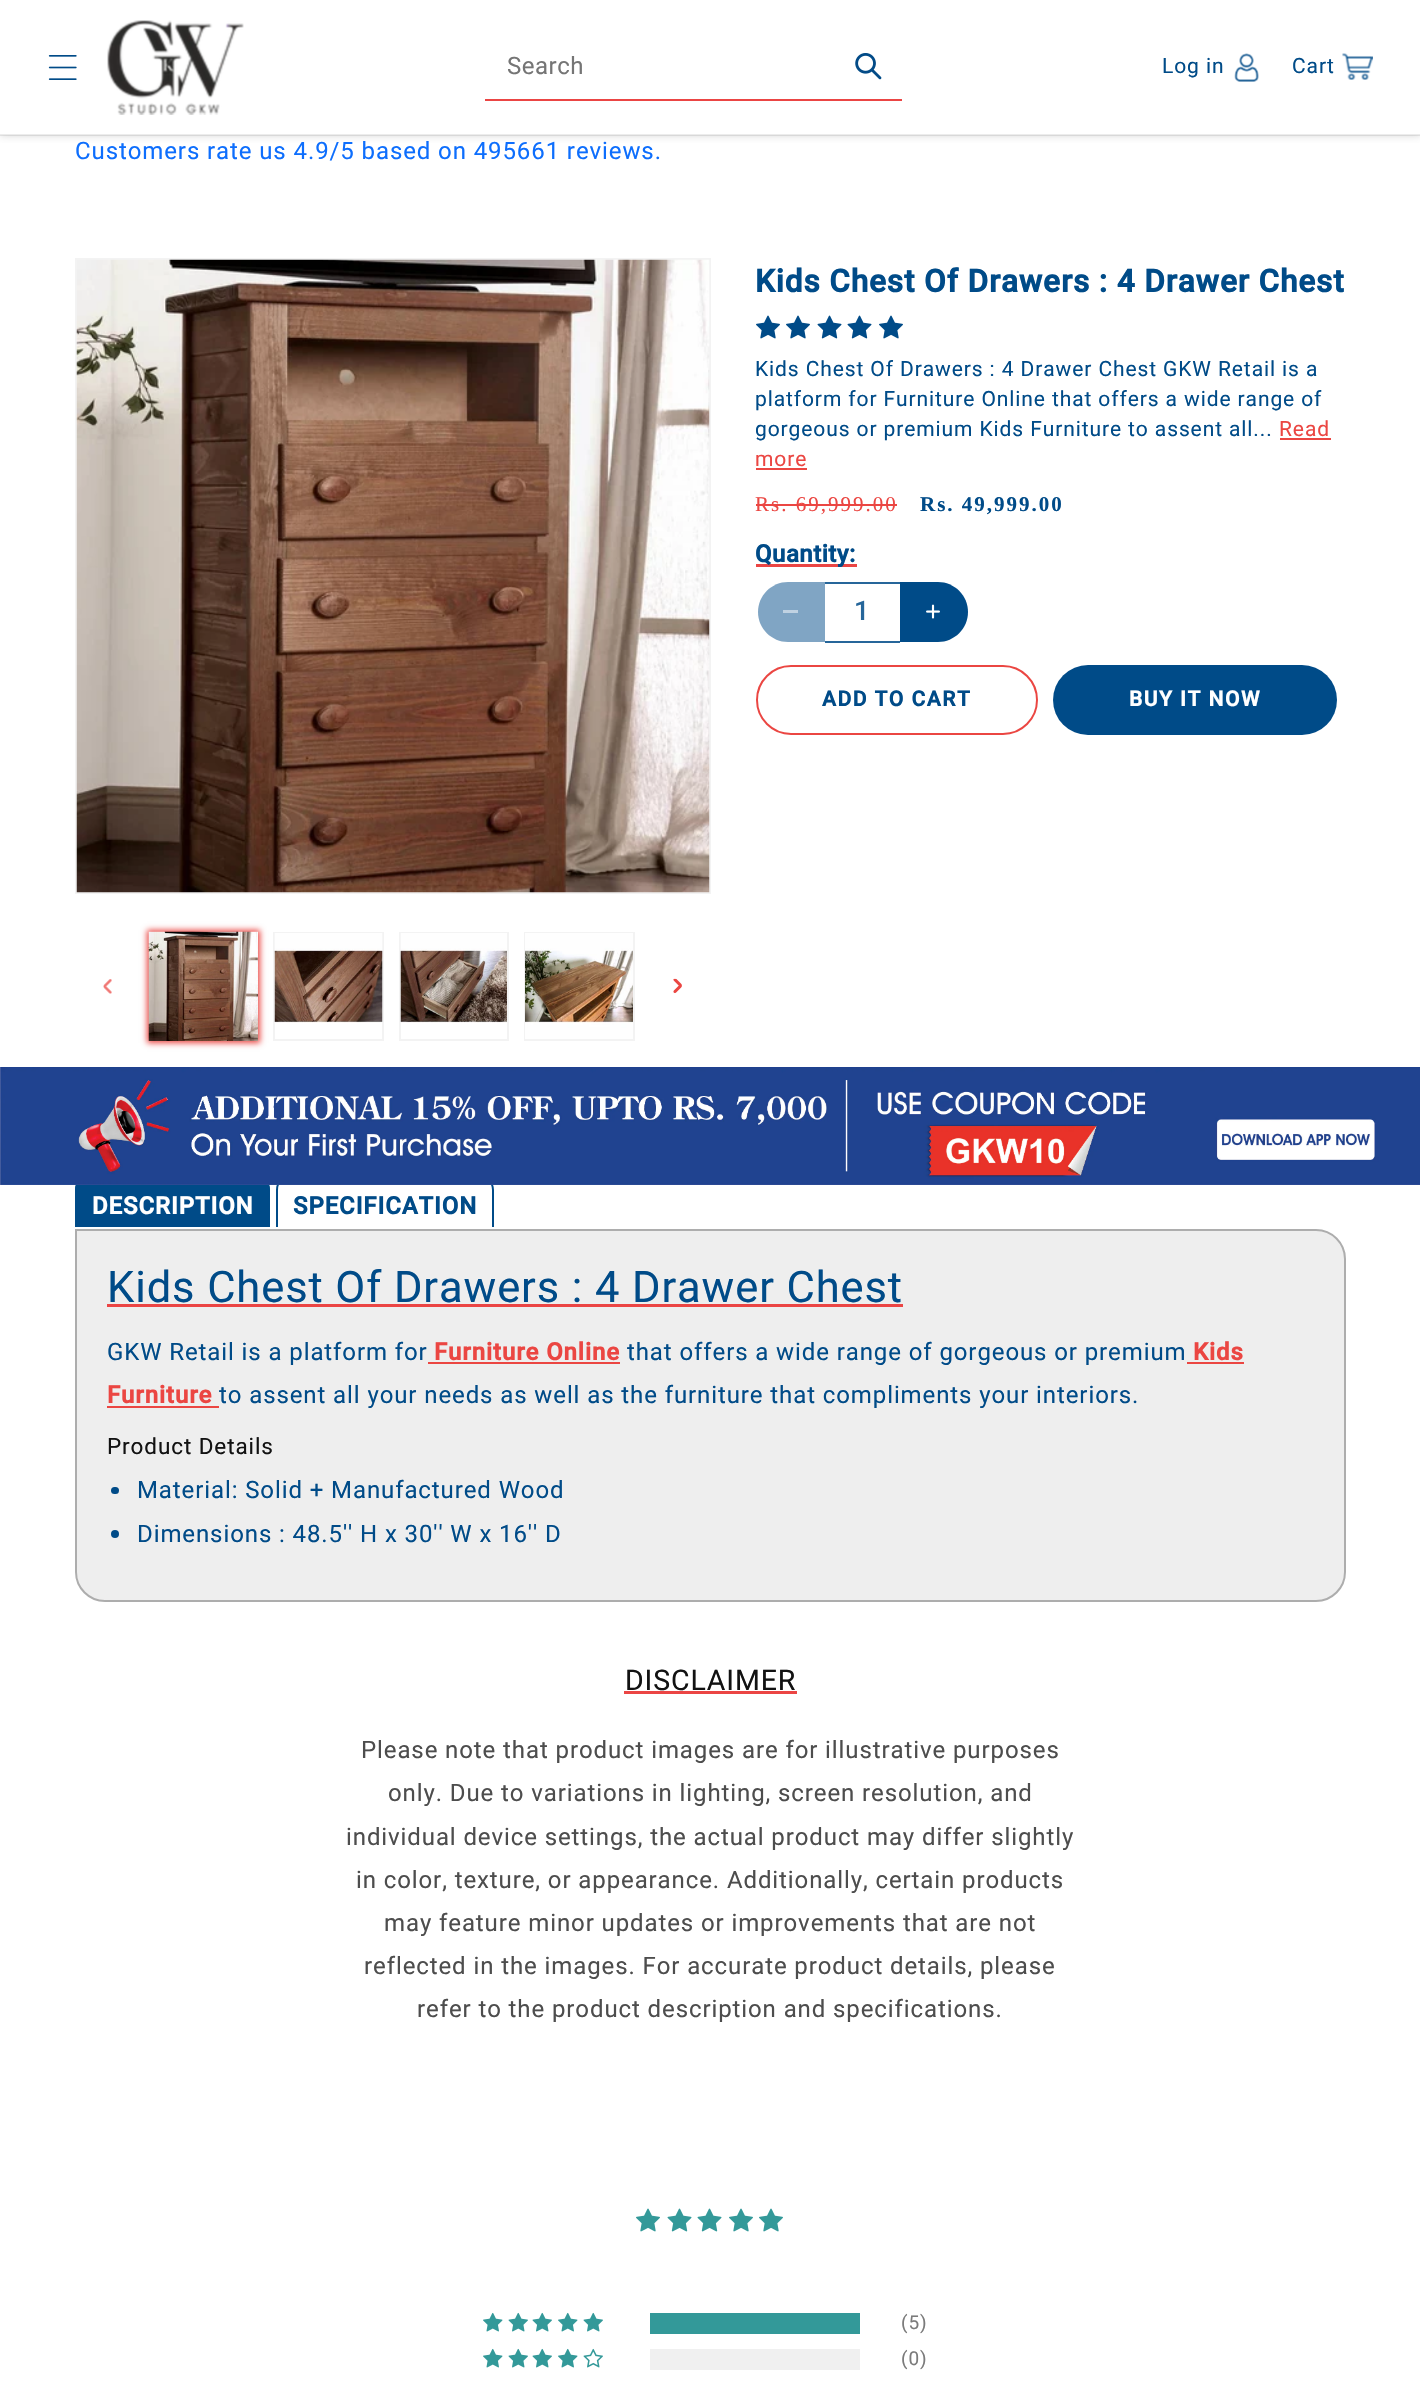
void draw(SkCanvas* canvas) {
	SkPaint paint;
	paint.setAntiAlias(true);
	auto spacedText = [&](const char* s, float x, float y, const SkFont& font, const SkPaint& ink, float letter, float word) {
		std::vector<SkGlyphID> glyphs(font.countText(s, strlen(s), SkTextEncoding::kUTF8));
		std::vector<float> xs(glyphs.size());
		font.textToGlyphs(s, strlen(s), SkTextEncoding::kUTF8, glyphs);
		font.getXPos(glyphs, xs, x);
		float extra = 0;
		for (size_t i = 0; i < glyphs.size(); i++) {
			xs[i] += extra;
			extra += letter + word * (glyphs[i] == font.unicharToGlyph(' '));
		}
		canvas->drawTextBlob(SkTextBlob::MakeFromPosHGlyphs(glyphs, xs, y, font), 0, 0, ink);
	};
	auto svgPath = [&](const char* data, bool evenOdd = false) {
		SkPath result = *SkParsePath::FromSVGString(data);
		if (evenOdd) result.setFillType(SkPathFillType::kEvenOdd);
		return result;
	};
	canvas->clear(0xffffffff);
	canvas->save();
	canvas->clipRect(SkRect::MakeXYWH(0, 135, 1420, 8));
	paint.setColor(0xffd2d2d2);
	paint.setMaskFilter(SkMaskFilter::MakeBlur(kNormal_SkBlurStyle, 4));
	canvas->drawRect(SkRect::MakeXYWH(0, 0, 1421, 135), paint);
	paint.setMaskFilter(nullptr);
	canvas->restore();
	paint.setColor(0x14121212);
	canvas->drawRect(SkRect::MakeXYWH(0, 134, 1420, 2), paint);
	canvas->drawImageRect(SkImages::DeferredFromEncodedData(SkData::MakeFromFileName("img1.png")), SkRect::MakeXYWH(48, 55, 29, 25), SkSamplingOptions());
	canvas->drawImageRect(SkImages::DeferredFromEncodedData(SkData::MakeFromFileName("img2.png")), SkRect::MakeXYWH(107, 20, 137, 95), SkSamplingOptions());
	paint.setColor(0xffeb4544);
	canvas->drawRect(SkRect::MakeXYWH(485, 99, 417, 2), paint);
	SkFont f1(fontMgr->matchFamilyStyle("Roboto", SkFontStyle::Normal()), 24);
	f1.setSubpixel(true);
	paint.setColor(0xff757575);
	spacedText("Search", 507, 74, f1, paint, 0.5, 0);
	canvas->drawImageRect(SkImages::DeferredFromEncodedData(SkData::MakeFromFileName("img3.png")), SkRect::MakeXYWH(855, 53, 27, 27), SkSamplingOptions());
	SkFont f2(fontMgr->matchFamilyStyle("Roboto", SkFontStyle::Normal()), 21);
	f2.setSubpixel(true);
	paint.setColor(0xff004b88);
	spacedText("Log in", 1162, 73, f2, paint, 0.9, 0);
	canvas->drawImageRect(SkImages::DeferredFromEncodedData(SkData::MakeFromFileName("img4.png")), SkRect::MakeXYWH(1234, 53, 25, 29), SkSamplingOptions());
	spacedText("Cart", 1292, 73, f2, paint, 0.9, 0);
	canvas->drawImageRect(SkImages::DeferredFromEncodedData(SkData::MakeFromFileName("img5.png")), SkRect::MakeXYWH(1342, 53, 31, 27), SkSamplingOptions());
	paint.setColor(0xff0d6efd);
	spacedText("Customers rate us 4.9/5 based on 495661 reviews.", 75, 159, f1, paint, 0.9, 0);
	paint.setStroke(true);
	paint.setStrokeWidth(2);
	paint.setColor(0xfff3f3f3);
	canvas->drawRect(SkRect::MakeXYWH(76, 259, 634, 634), paint);
	canvas->drawImageRect(SkImages::DeferredFromEncodedData(SkData::MakeFromFileName("img6.png")), SkRect::MakeXYWH(76, 259, 634, 634), SkSamplingOptions());
	canvas->drawImageRect(SkImages::DeferredFromEncodedData(SkData::MakeFromFileName("img7.png")), SkRect::MakeXYWH(103, 979, 9, 15), SkSamplingOptions());
	paint.setStroke(false);
	paint.setColor(0xffeb4642);
	paint.setMaskFilter(SkMaskFilter::MakeBlur(kNormal_SkBlurStyle, 3));
	canvas->drawRect(SkRect::MakeXYWH(147, 930, 113, 113), paint);
	paint.setMaskFilter(nullptr);
	canvas->drawImageRect(SkImages::DeferredFromEncodedData(SkData::MakeFromFileName("img8.png")), SkRect::MakeXYWH(148, 931, 110, 110), SkSamplingOptions());
	paint.setStroke(true);
	paint.setColor(0xfff3f3f3);
	canvas->drawRect(SkRect::MakeXYWH(274, 933, 109, 107), paint);
	canvas->drawImageRect(SkImages::DeferredFromEncodedData(SkData::MakeFromFileName("img9.png")), SkRect::MakeXYWH(274, 933, 109, 90), SkSamplingOptions());
	canvas->drawRect(SkRect::MakeXYWH(400, 933, 108, 107), paint);
	canvas->drawImageRect(SkImages::DeferredFromEncodedData(SkData::MakeFromFileName("img10.png")), SkRect::MakeXYWH(400, 933, 107, 90), SkSamplingOptions());
	canvas->drawRect(SkRect::MakeXYWH(525, 933, 109, 107), paint);
	canvas->drawImageRect(SkImages::DeferredFromEncodedData(SkData::MakeFromFileName("img11.png")), SkRect::MakeXYWH(525, 933, 108, 106), SkSamplingOptions());
	canvas->drawImageRect(SkImages::DeferredFromEncodedData(SkData::MakeFromFileName("img12.png")), SkRect::MakeXYWH(673, 978, 9, 16), SkSamplingOptions());
	SkFont f3(fontMgr->matchFamilyStyle("Roboto", SkFontStyle::Bold()), 31.5);
	f3.setSubpixel(true);
	paint.setStroke(false);
	paint.setColor(0xff004b88);
	spacedText("Kids Chest Of Drawers : 4 Drawer Chest", 755, 292, f3, paint, 0.9, 0);
	canvas->drawImageRect(SkImages::DeferredFromEncodedData(SkData::MakeFromFileName("img13.png")), SkRect::MakeXYWH(756, 315, 24, 24), SkSamplingOptions());
	canvas->drawImageRect(SkImages::DeferredFromEncodedData(SkData::MakeFromFileName("img13.png")), SkRect::MakeXYWH(786, 315, 24, 24), SkSamplingOptions());
	canvas->drawImageRect(SkImages::DeferredFromEncodedData(SkData::MakeFromFileName("img14.png")), SkRect::MakeXYWH(817, 315, 25, 24), SkSamplingOptions());
	canvas->drawImageRect(SkImages::DeferredFromEncodedData(SkData::MakeFromFileName("img14.png")), SkRect::MakeXYWH(847, 315, 25, 24), SkSamplingOptions());
	canvas->drawImageRect(SkImages::DeferredFromEncodedData(SkData::MakeFromFileName("img13.png")), SkRect::MakeXYWH(879, 315, 24, 24), SkSamplingOptions());
	spacedText("Kids Chest Of Drawers : 4 Drawer Chest GKW Retail is a", 755, 376, f2, paint, 0.9, 0);
	spacedText("platform for Furniture Online that offers a wide range of", 755, 406, f2, paint, 0.9, 0);
	spacedText("gorgeous or premium Kids Furniture to assent all...", 755, 436, f2, paint, 0.9, 0);
	paint.setColor(0xffeb4642);
	spacedText("Read", 1279, 436, f2, paint, 0.9, 0);
	canvas->drawRect(SkRect::MakeXYWH(1280, 438, 51, 2), paint);
	spacedText("more", 755, 466, f2, paint, 0.9, 0);
	canvas->drawRect(SkRect::MakeXYWH(756, 468, 51, 2), paint);
	SkFont f4(fontMgr->matchFamilyStyle("Liberation Serif", SkFontStyle::Normal()), 21);
	f4.setSubpixel(true);
	spacedText("Rs. 69,999.00", 755, 511, f4, paint, 2, 0);
	canvas->drawRect(SkRect::MakeXYWH(756, 504, 141, 2), paint);
	SkFont f5(fontMgr->matchFamilyStyle("Liberation Serif", SkFontStyle::Bold()), 21);
	f5.setSubpixel(true);
	paint.setColor(0xff004b88);
	spacedText("Rs. 49,999.00", 920, 511, f5, paint, 2, 0);
	paint.setColor(0xffeb4544);
	canvas->drawRect(SkRect::MakeXYWH(756, 564, 101, 3), paint);
	SkFont f6(fontMgr->matchFamilyStyle("Roboto", SkFontStyle::Bold()), 24);
	f6.setSubpixel(true);
	paint.setColor(0xff004b88);
	spacedText("Quantity:", 755, 562, f6, paint, 0.5, 0);
	paint.setColor(0xff80a5c4);
	canvas->drawPath(svgPath("M788 582H825V642H788C771.5 642 758 628.5 758 612C758 595.5 771.5 582 788 582Z"), paint);
	paint.setColor(0xffc0d2e2);
	canvas->drawRect(SkRect::MakeXYWH(783, 610, 15, 3), paint);
	paint.setColor(0xff26669a);
	canvas->drawRect(SkRect::MakeXYWH(825, 582, 75, 2), paint);
	canvas->drawRect(SkRect::MakeXYWH(825, 641, 75, 2), paint);
	SkFont f7(fontMgr->matchFamilyStyle("Roboto", SkFontStyle(500, SkFontStyle::kNormal_Width, SkFontStyle::kUpright_Slant)), 27);
	f7.setSubpixel(true);
	canvas->drawString("1", 854, 620, f7, paint);
	paint.setColor(0xff004b88);
	canvas->drawPath(svgPath("M900 582H938C954.5 582 968 595.5 968 612C968 628.5 954.5 642 938 642H900Z"), paint);
	canvas->drawImageRect(SkImages::DeferredFromEncodedData(SkData::MakeFromFileName("img15.png")), SkRect::MakeXYWH(926, 604, 14, 15), SkSamplingOptions());
	paint.setStroke(true);
	paint.setColor(0xffeb4642);
	canvas->drawRoundRect(SkRect::MakeXYWH(757, 666, 280, 68), 34, 34, paint);
	SkFont f8(fontMgr->matchFamilyStyle("Roboto", SkFontStyle::Bold()), 21);
	f8.setSubpixel(true);
	paint.setStroke(false);
	paint.setColor(0xff004b88);
	spacedText("ADD TO CART", 822, 706, f8, paint, 1.5, 0);
	canvas->drawRoundRect(SkRect::MakeXYWH(1053, 665, 284, 70), 35, 35, paint);
	paint.setColor(0xffffffff);
	spacedText("BUY IT NOW", 1129, 706, f8, paint, 1.5, 0);
	paint.setColor(0xff004b88);
	canvas->drawPath(svgPath("M90 1175H255C263.5 1175 270 1181.5 270 1190V1227H75V1190C75 1181.5 81.5 1175 90 1175Z"), paint);
	canvas->drawPath(svgPath("M90 1174H255C263 1174 270 1181 270 1190V1227H75V1190C75 1181 82 1174 90 1174ZM90 1176H255C262 1176 268 1182 268 1190V1227H76V1190C76 1182 83 1176 90 1176Z", true), paint);
	canvas->drawPath(svgPath("M291 1174H478C487 1174 494 1181 494 1190V1227H276V1190C276 1181 283 1174 291 1174ZM291 1176H478C486 1176 492 1182 492 1190V1227H278V1190C278 1182 284 1176 291 1176Z", true), paint);
	canvas->drawImageRect(SkImages::DeferredFromEncodedData(SkData::MakeFromFileName("img16.png")), SkRect::MakeXYWH(0, 1067, 1420, 118), SkSamplingOptions());
	paint.setColor(0xffffffff);
	spacedText("DESCRIPTION", 92, 1214, f6, paint, 0.9, 0);
	paint.setColor(0xff004b88);
	spacedText("SPECIFICATION", 293, 1214, f6, paint, 0.9, 0);
	paint.setColor(0xffeeeeee);
	canvas->drawPath(svgPath("M76 1230H1316C1332 1230 1345 1243 1345 1259V1572C1345 1588 1332 1601 1316 1601H105C89 1601 76 1588 76 1572Z"), paint);
	paint.setStroke(true);
	paint.setColor(0xffadadad);
	canvas->drawPath(svgPath("M76 1230H1316C1332 1230 1345 1243 1345 1259V1572C1345 1588 1332 1601 1316 1601H105C89 1601 76 1588 76 1572Z"), paint);
	SkFont f9(fontMgr->matchFamilyStyle("Roboto", SkFontStyle::Normal()), 43.5);
	f9.setSubpixel(true);
	paint.setStroke(false);
	paint.setColor(0xff004b88);
	spacedText("Kids Chest Of Drawers : 4 Drawer Chest", 107, 1302, f9, paint, 0.9, 0);
	paint.setColor(0xffeb4544);
	canvas->drawRect(SkRect::MakeXYWH(107, 1304, 796, 3), paint);
	paint.setColor(0xff004b88);
	spacedText("GKW Retail is a platform for", 107, 1360, f1, paint, 0.9, 0);
	paint.setColor(0xffeb4642);
	spacedText("Furniture Online", 434, 1360, f6, paint, 0.9, 0);
	canvas->drawRect(SkRect::MakeXYWH(428, 1362, 192, 2), paint);
	paint.setColor(0xff004b88);
	spacedText("that offers a wide range of gorgeous or premium", 627, 1360, f1, paint, 0.9, 0);
	paint.setColor(0xffeb4642);
	spacedText("Kids", 1193, 1360, f6, paint, 0.9, 0);
	canvas->drawRect(SkRect::MakeXYWH(1187, 1362, 57, 2), paint);
	spacedText("Furniture", 107, 1403, f6, paint, 0.9, 0);
	canvas->drawRect(SkRect::MakeXYWH(107, 1406, 112, 2), paint);
	paint.setColor(0xff004b88);
	spacedText("to assent all your needs as well as the furniture that compliments your interiors.", 219, 1403, f1, paint, 0.9, 0);
	SkFont f10(fontMgr->matchFamilyStyle("Roboto", SkFontStyle::Normal()), 22.5);
	f10.setSubpixel(true);
	paint.setColor(0xff121212);
	spacedText("Product Details", 107, 1454, f10, paint, 0.9, 0);
	paint.setColor(0xff004b88);
	canvas->drawRoundRect(SkRect::MakeXYWH(111, 1487, 8, 7), 3.5, 3.5, paint);
	spacedText("Material: Solid + Manufactured Wood", 137, 1498, f1, paint, 0.9, 0);
	canvas->drawCircle(115, 1534, 4, paint);
	spacedText("Dimensions : 48.5'' H x 30'' W x 16'' D", 137, 1542, f1, paint, 0.9, 0);
	SkFont f11(fontMgr->matchFamilyStyle("Roboto", SkFontStyle::Normal()), 28.5);
	f11.setSubpixel(true);
	paint.setColor(0xff121212);
	spacedText("DISCLAIMER", 625, 1690, f11, paint, 0.9, 0);
	paint.setColor(0xffeb4544);
	canvas->drawRect(SkRect::MakeXYWH(624, 1691, 173, 3), paint);
	paint.setColor(0xff4d4d4d);
	spacedText("Please note that product images are for illustrative purposes", 361, 1758, f1, paint, 0.9, 0);
	spacedText("only. Due to variations in lighting, screen resolution, and", 388, 1801, f1, paint, 0.9, 0);
	spacedText("individual device settings, the actual product may differ slightly", 346, 1845, f1, paint, 0.9, 0);
	spacedText("in color, texture, or appearance. Additionally, certain products", 356, 1888, f1, paint, 0.9, 0);
	spacedText("may feature minor updates or improvements that are not", 384, 1931, f1, paint, 0.9, 0);
	spacedText("reflected in the images. For accurate product details, please", 364, 1974, f1, paint, 0.9, 0);
	spacedText("refer to the product description and specifications.", 417, 2017, f1, paint, 0.9, 0);
	canvas->drawImageRect(SkImages::DeferredFromEncodedData(SkData::MakeFromFileName("img17.png")), SkRect::MakeXYWH(636, 2208, 24, 24), SkSamplingOptions());
	canvas->drawImageRect(SkImages::DeferredFromEncodedData(SkData::MakeFromFileName("img18.png")), SkRect::MakeXYWH(667, 2208, 25, 24), SkSamplingOptions());
	canvas->drawImageRect(SkImages::DeferredFromEncodedData(SkData::MakeFromFileName("img18.png")), SkRect::MakeXYWH(697, 2208, 25, 24), SkSamplingOptions());
	canvas->drawImageRect(SkImages::DeferredFromEncodedData(SkData::MakeFromFileName("img17.png")), SkRect::MakeXYWH(729, 2208, 24, 24), SkSamplingOptions());
	canvas->drawImageRect(SkImages::DeferredFromEncodedData(SkData::MakeFromFileName("img17.png")), SkRect::MakeXYWH(759, 2208, 24, 24), SkSamplingOptions());
	canvas->drawImageRect(SkImages::DeferredFromEncodedData(SkData::MakeFromFileName("img19.png")), SkRect::MakeXYWH(483, 2312, 20, 20), SkSamplingOptions());
	canvas->drawImageRect(SkImages::DeferredFromEncodedData(SkData::MakeFromFileName("img20.png")), SkRect::MakeXYWH(508, 2312, 20, 20), SkSamplingOptions());
	canvas->drawImageRect(SkImages::DeferredFromEncodedData(SkData::MakeFromFileName("img20.png")), SkRect::MakeXYWH(532, 2312, 20, 20), SkSamplingOptions());
	canvas->drawImageRect(SkImages::DeferredFromEncodedData(SkData::MakeFromFileName("img19.png")), SkRect::MakeXYWH(558, 2312, 20, 20), SkSamplingOptions());
	canvas->drawImageRect(SkImages::DeferredFromEncodedData(SkData::MakeFromFileName("img20.png")), SkRect::MakeXYWH(583, 2312, 20, 20), SkSamplingOptions());
	paint.setColor(0xff339999);
	canvas->drawRect(SkRect::MakeXYWH(650, 2313, 210, 21), paint);
	SkFont f12(fontMgr->matchFamilyStyle("Roboto", SkFontStyle::Normal()), 19);
	f12.setSubpixel(true);
	paint.setColor(0xff7b7b7b);
	spacedText("(5)", 901, 2329, f12, paint, 0.9, 0);
	canvas->drawImageRect(SkImages::DeferredFromEncodedData(SkData::MakeFromFileName("img19.png")), SkRect::MakeXYWH(483, 2348, 20, 20), SkSamplingOptions());
	canvas->drawImageRect(SkImages::DeferredFromEncodedData(SkData::MakeFromFileName("img20.png")), SkRect::MakeXYWH(508, 2348, 20, 20), SkSamplingOptions());
	canvas->drawImageRect(SkImages::DeferredFromEncodedData(SkData::MakeFromFileName("img20.png")), SkRect::MakeXYWH(532, 2348, 20, 20), SkSamplingOptions());
	canvas->drawImageRect(SkImages::DeferredFromEncodedData(SkData::MakeFromFileName("img19.png")), SkRect::MakeXYWH(558, 2348, 20, 20), SkSamplingOptions());
	canvas->drawImageRect(SkImages::DeferredFromEncodedData(SkData::MakeFromFileName("img21.png")), SkRect::MakeXYWH(583, 2348, 20, 20), SkSamplingOptions());
	paint.setColor(0xfff0f0f0);
	canvas->drawRect(SkRect::MakeXYWH(650, 2349, 210, 21), paint);
	paint.setColor(0xff7b7b7b);
	spacedText("(0)", 901, 2365, f12, paint, 0.9, 0);
}
